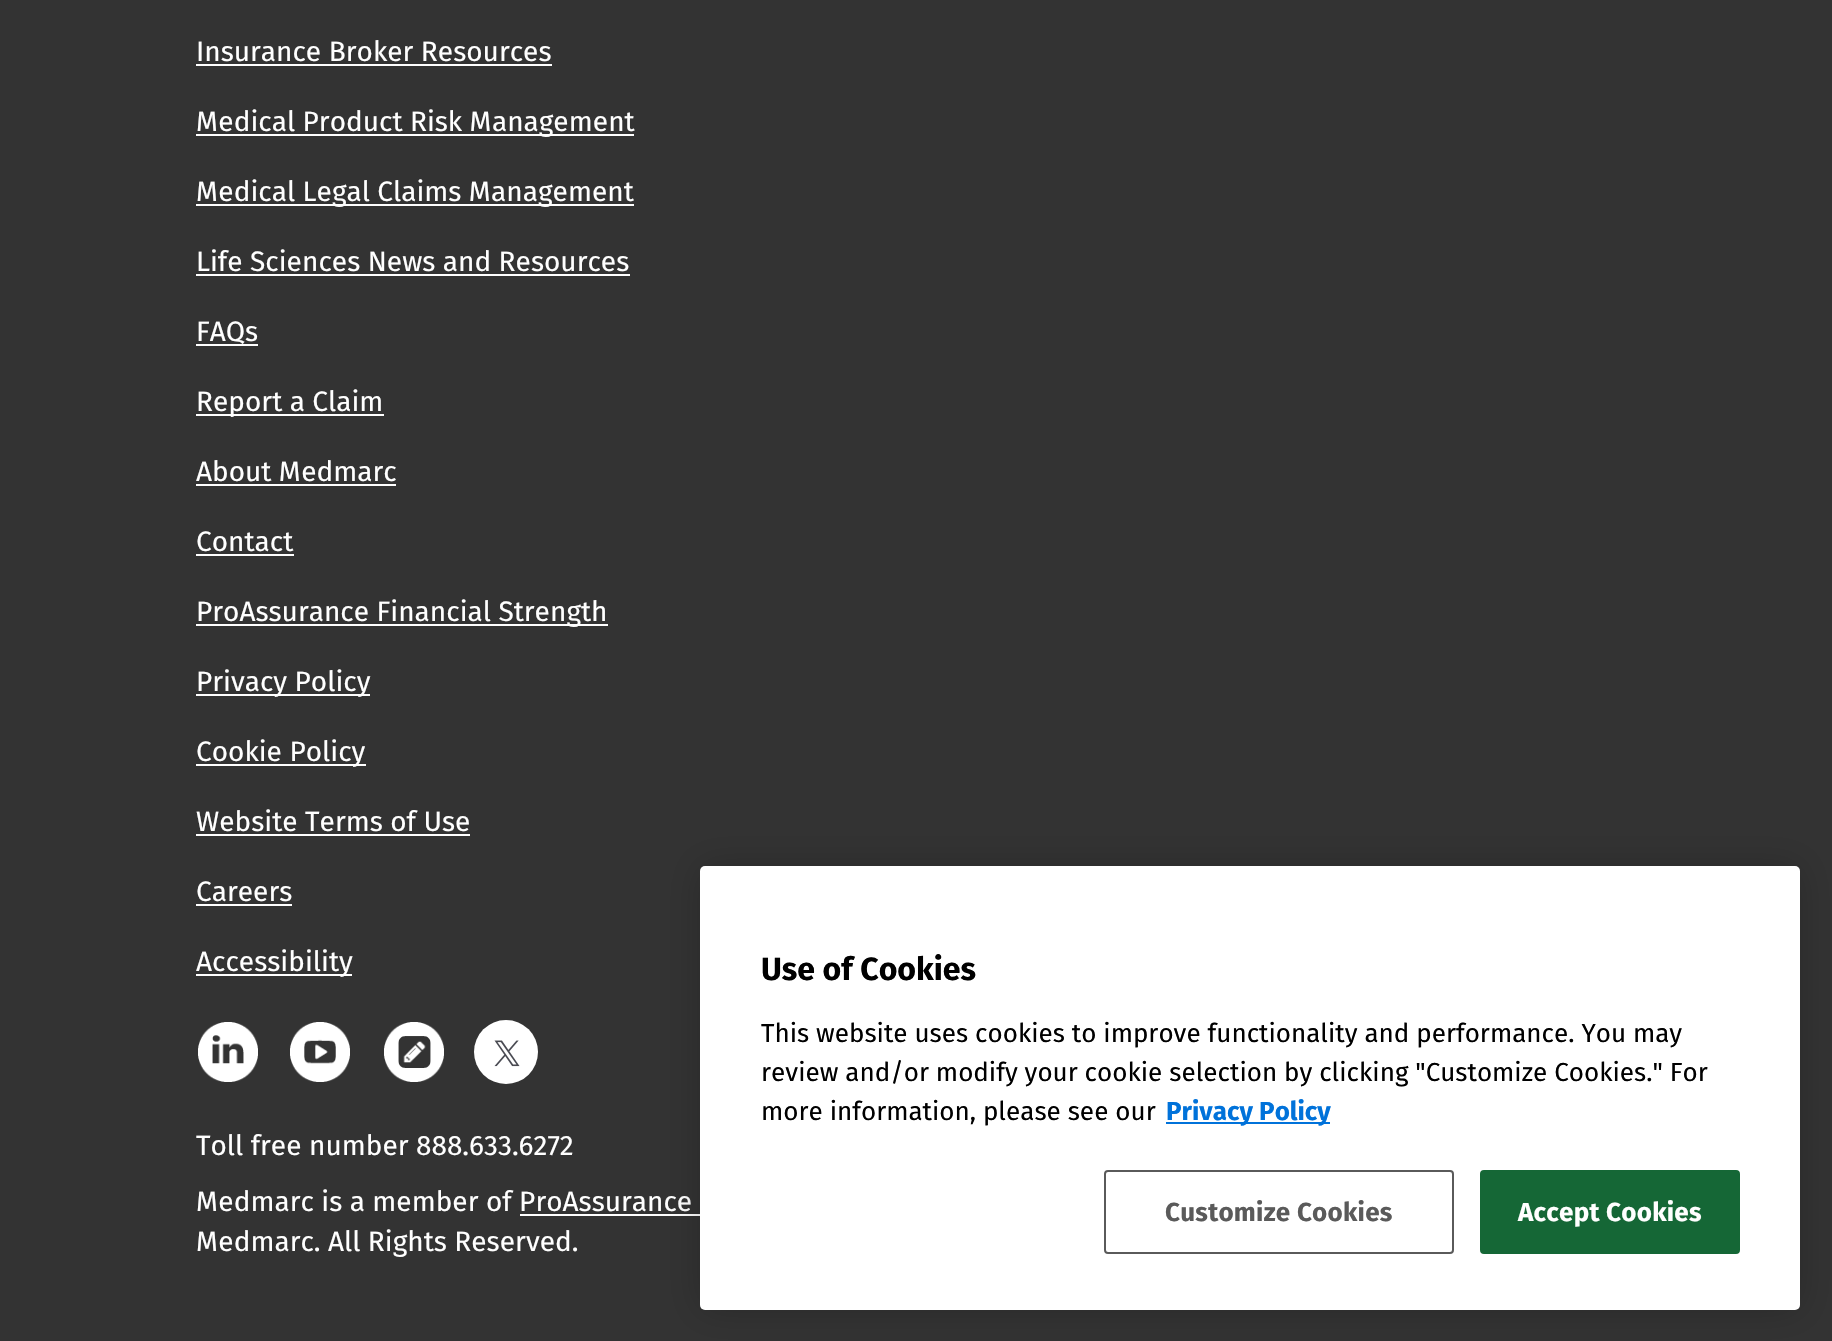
void draw(SkCanvas* canvas) {
	SkPaint paint;
	paint.setAntiAlias(true);
	auto spacedText = [&](const char* s, float x, float y, const SkFont& font, const SkPaint& ink, float letter, float word) {
		std::vector<SkGlyphID> glyphs(font.countText(s, strlen(s), SkTextEncoding::kUTF8));
		std::vector<float> xs(glyphs.size());
		font.textToGlyphs(s, strlen(s), SkTextEncoding::kUTF8, glyphs);
		font.getXPos(glyphs, xs, x);
		float extra = 0;
		for (size_t i = 0; i < glyphs.size(); i++) {
			xs[i] += extra;
			extra += letter + word * (glyphs[i] == font.unicharToGlyph(' '));
		}
		canvas->drawTextBlob(SkTextBlob::MakeFromPosHGlyphs(glyphs, xs, y, font), 0, 0, ink);
	};
	canvas->clear(0xff333333);
	SkFont f1(fontMgr->matchFamilyStyle("Fira Sans", SkFontStyle::Normal()), 28);
	f1.setSubpixel(true);
	paint.setColor(0xffffffff);
	canvas->drawString("Insurance Broker Resources", 196, 61, f1, paint);
	canvas->drawRect(SkRect::MakeXYWH(196, 64, 356, 2), paint);
	canvas->drawRect(SkRect::MakeXYWH(196, 134, 438, 2), paint);
	canvas->drawString("Medical Product Risk Management", 196, 131, f1, paint);
	canvas->drawRect(SkRect::MakeXYWH(196, 204, 438, 2), paint);
	canvas->drawString("Medical Legal Claims Management", 196, 201, f1, paint);
	canvas->drawString("Life Sciences News and Resources", 196, 271, f1, paint);
	canvas->drawRect(SkRect::MakeXYWH(196, 274, 434, 2), paint);
	canvas->drawString("FAQs", 196, 341, f1, paint);
	canvas->drawRect(SkRect::MakeXYWH(196, 344, 62, 2), paint);
	canvas->drawRect(SkRect::MakeXYWH(196, 414, 188, 2), paint);
	canvas->drawString("Report a Claim", 196, 411, f1, paint);
	canvas->drawString("About Medmarc", 196, 481, f1, paint);
	canvas->drawRect(SkRect::MakeXYWH(196, 484, 200, 2), paint);
	canvas->drawString("Contact", 196, 551, f1, paint);
	canvas->drawRect(SkRect::MakeXYWH(196, 554, 98, 2), paint);
	canvas->drawRect(SkRect::MakeXYWH(196, 624, 412, 2), paint);
	canvas->drawString("ProAssurance Financial Strength", 196, 621, f1, paint);
	canvas->drawRect(SkRect::MakeXYWH(196, 694, 174, 2), paint);
	canvas->drawString("Privacy Policy", 196, 691, f1, paint);
	canvas->drawRect(SkRect::MakeXYWH(196, 764, 170, 2), paint);
	canvas->drawString("Cookie Policy", 196, 761, f1, paint);
	canvas->drawString("Website Terms of Use", 196, 831, f1, paint);
	canvas->drawRect(SkRect::MakeXYWH(196, 834, 274, 2), paint);
	canvas->drawString("Careers", 196, 901, f1, paint);
	canvas->drawRect(SkRect::MakeXYWH(196, 904, 96, 2), paint);
	canvas->drawRect(SkRect::MakeXYWH(196, 974, 156, 2), paint);
	canvas->drawString("Accessibility", 196, 971, f1, paint);
	canvas->drawImageRect(SkImages::DeferredFromEncodedData(SkData::MakeFromFileName("img1.png")), SkRect::MakeXYWH(198, 1022, 60, 60), SkSamplingOptions());
	canvas->drawImageRect(SkImages::DeferredFromEncodedData(SkData::MakeFromFileName("img2.png")), SkRect::MakeXYWH(290, 1022, 60, 60), SkSamplingOptions());
	canvas->drawImageRect(SkImages::DeferredFromEncodedData(SkData::MakeFromFileName("img3.png")), SkRect::MakeXYWH(384, 1022, 60, 60), SkSamplingOptions());
	canvas->drawCircle(506, 1052, 32, paint);
	canvas->drawImageRect(SkImages::DeferredFromEncodedData(SkData::MakeFromFileName("img4.png")), SkRect::MakeXYWH(494, 1040, 26, 27), SkSamplingOptions());
	canvas->drawString("Toll free number 888.633.6272", 196, 1155, f1, paint);
	canvas->drawString("Medmarc is a member of ProAssurance", 196, 1211, f1, paint);
	canvas->drawRect(SkRect::MakeXYWH(520, 1214, 180, 2), paint);
	canvas->drawString("Medmarc. All Rights Reserved.", 196, 1251, f1, paint);
	paint.setColor(0x33000000);
	paint.setMaskFilter(SkMaskFilter::MakeBlur(kNormal_SkBlurStyle, 18));
	canvas->drawRoundRect(SkRect::MakeXYWH(700, 866, 1100, 444), 5, 5, paint);
	paint.setMaskFilter(nullptr);
	paint.setColor(0xffffffff);
	canvas->drawRoundRect(SkRect::MakeXYWH(700, 866, 1100, 444), 5, 5, paint);
	SkFont f2(fontMgr->matchFamilyStyle("Fira Sans", SkFontStyle::Bold()), 32);
	f2.setSubpixel(true);
	paint.setColor(0xff000000);
	canvas->drawString("Use of Cookies", 761, 980, f2, paint);
	SkFont f3(fontMgr->matchFamilyStyle("Fira Sans", SkFontStyle::Normal()), 26);
	f3.setSubpixel(true);
	canvas->drawString("This website uses cookies to improve functionality and performance. You may", 761, 1042, f3, paint);
	canvas->drawString("review and/or modify your cookie selection by clicking \"Customize Cookies.\" For", 761, 1081, f3, paint);
	canvas->drawString("more information, please see our", 761, 1120, f3, paint);
	paint.setColor(0xff0072da);
	canvas->drawRect(SkRect::MakeXYWH(1166, 1122, 164, 2), paint);
	SkFont f4(fontMgr->matchFamilyStyle("Fira Sans", SkFontStyle::Bold()), 26);
	f4.setSubpixel(true);
	canvas->drawString("Privacy Policy", 1166, 1120, f4, paint);
	paint.setStroke(true);
	paint.setStrokeWidth(2);
	paint.setColor(0xff5a5a5a);
	canvas->drawRoundRect(SkRect::MakeXYWH(1105, 1171, 348, 82), 3, 3, paint);
	paint.setStroke(false);
	spacedText("Customize Cookies", 1165, 1221, f4, paint, 0.25, 0);
	paint.setColor(0xff156736);
	canvas->drawRoundRect(SkRect::MakeXYWH(1481, 1171, 258, 82), 3, 3, paint);
	paint.setStroke(true);
	canvas->drawRoundRect(SkRect::MakeXYWH(1481, 1171, 258, 82), 3, 3, paint);
	paint.setStroke(false);
	paint.setColor(0xffffffff);
	spacedText("Accept Cookies", 1518, 1221, f4, paint, 0.25, 0);
}
